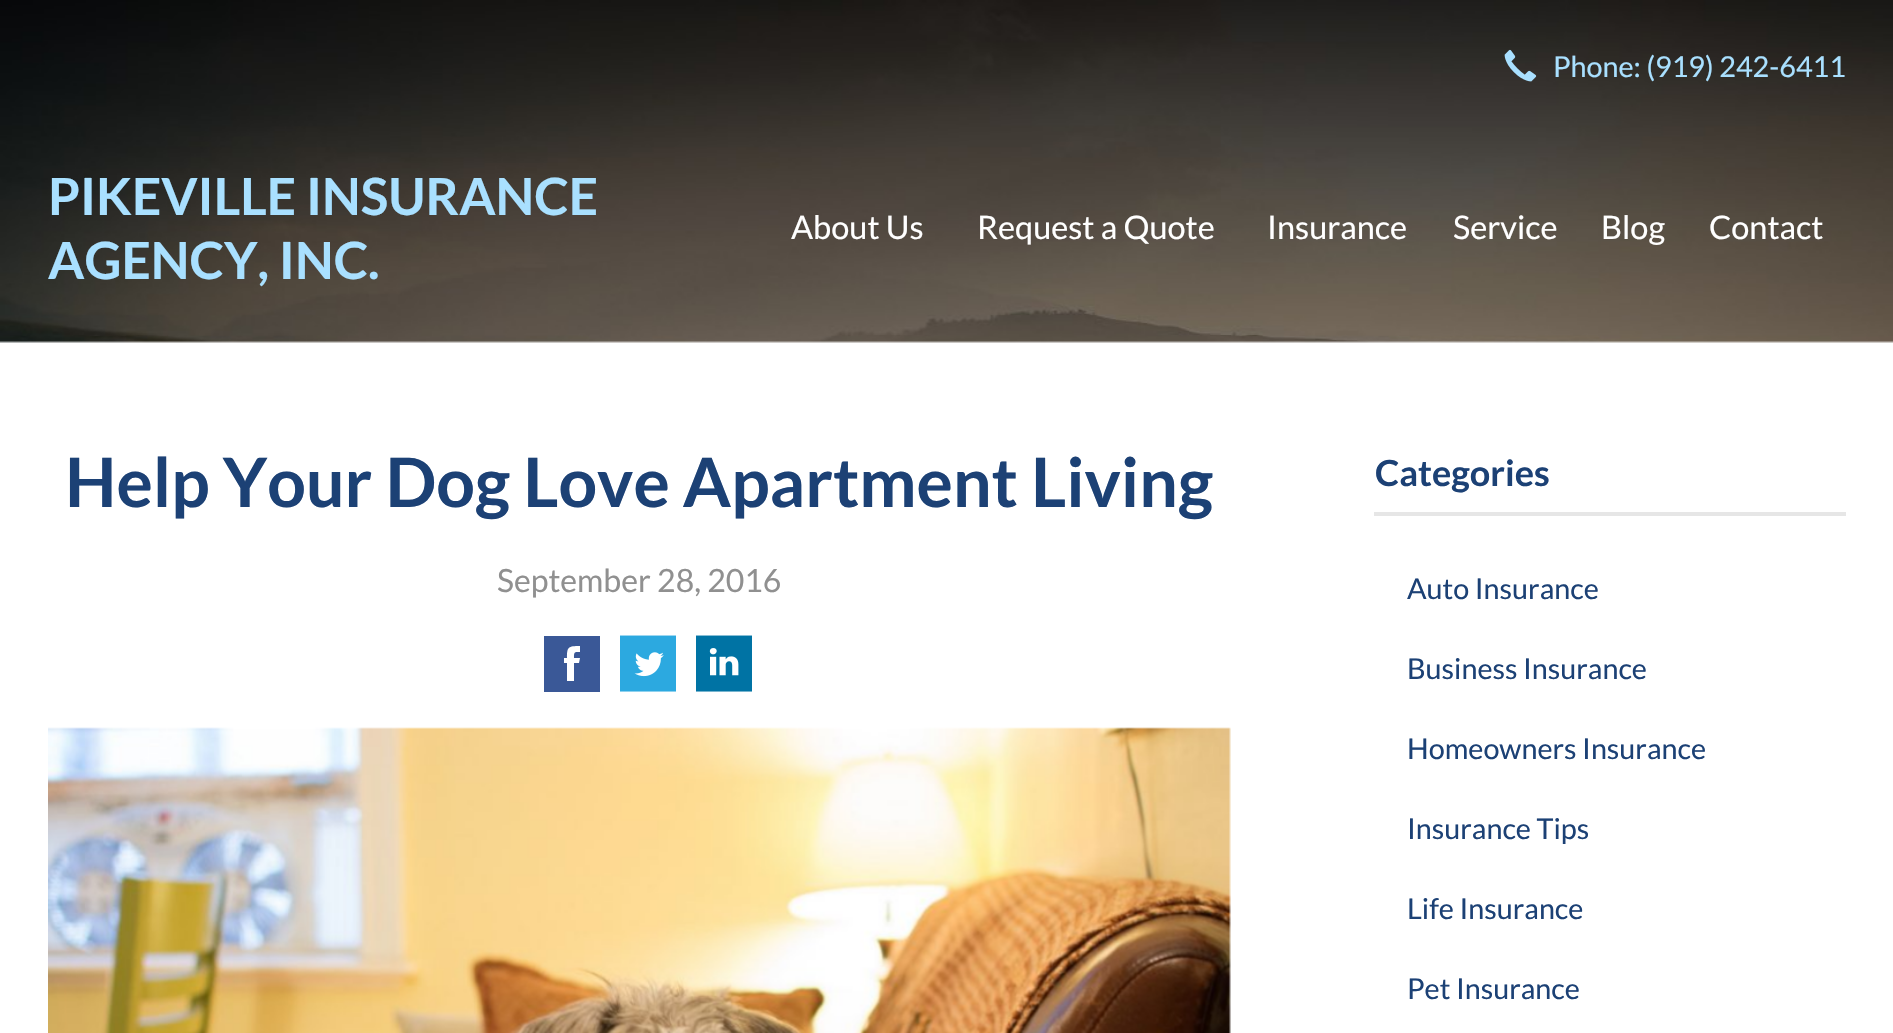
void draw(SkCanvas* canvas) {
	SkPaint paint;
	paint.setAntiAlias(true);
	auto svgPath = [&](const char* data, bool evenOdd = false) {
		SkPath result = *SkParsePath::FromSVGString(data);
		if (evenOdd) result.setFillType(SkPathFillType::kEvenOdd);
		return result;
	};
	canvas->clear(0xffffffff);
	canvas->drawImageRect(SkImages::DeferredFromEncodedData(SkData::MakeFromFileName("img1.png")), SkRect::MakeXYWH(0, 0, 1893, 343), SkSamplingOptions());
	canvas->drawImageRect(SkImages::DeferredFromEncodedData(SkData::MakeFromFileName("img2.png")), SkRect::MakeXYWH(1504, 49, 33, 33), SkSamplingOptions());
	SkFont f1(fontMgr->matchFamilyStyle("Lato", SkFontStyle::Normal()), 28.75);
	f1.setSubpixel(true);
	paint.setColor(0xffa9e0ff);
	canvas->drawString("Phone: (919) 242-6411", 1553, 77, f1, paint);
	SkFont f2(fontMgr->matchFamilyStyle("Lato", SkFontStyle::Bold()), 51.25);
	f2.setSubpixel(true);
	canvas->drawString("PIKEVILLE INSURANCE", 48, 215, f2, paint);
	canvas->drawString("AGENCY, INC.", 48, 279, f2, paint);
	SkFont f3(fontMgr->matchFamilyStyle("Lato", SkFontStyle::Normal()), 32.5);
	f3.setSubpixel(true);
	paint.setColor(0xffffffff);
	canvas->drawString("About Us", 791, 239, f3, paint);
	canvas->drawString("Request a Quote", 977, 239, f3, paint);
	canvas->drawString("Insurance", 1267, 239, f3, paint);
	canvas->drawString("Service", 1453, 239, f3, paint);
	canvas->drawString("Blog", 1601, 239, f3, paint);
	canvas->drawString("Contact", 1709, 239, f3, paint);
	SkFont f4(fontMgr->matchFamilyStyle("Lato", SkFontStyle::Bold()), 68);
	f4.setSubpixel(true);
	paint.setColor(0xff1c4175);
	canvas->drawString("Help Your Dog Love Apartment Living", 65, 507, f4, paint);
	SkFont f5(fontMgr->matchFamilyStyle("Lato", SkFontStyle::Normal()), 32);
	f5.setSubpixel(true);
	paint.setColor(0xff909090);
	canvas->drawString("September 28, 2016", 497, 592, f5, paint);
	paint.setColor(0xff3a5897);
	canvas->drawPath(svgPath("M544 692H600V636H544ZM564 658H567C567 647 568 646 580 646V652C574 652 574 652 574 658H580L579 663H574V681H567V663H564Z"), paint);
	canvas->drawImageRect(SkImages::DeferredFromEncodedData(SkData::MakeFromFileName("img3.png")), SkRect::MakeXYWH(620, 635, 56, 57), SkSamplingOptions());
	canvas->drawImageRect(SkImages::DeferredFromEncodedData(SkData::MakeFromFileName("img4.png")), SkRect::MakeXYWH(696, 635, 56, 57), SkSamplingOptions());
	canvas->drawImageRect(SkImages::DeferredFromEncodedData(SkData::MakeFromFileName("img5.png")), SkRect::MakeXYWH(48, 727, 1183, 306), SkSamplingOptions());
	paint.setColor(0xffe6e6e6);
	canvas->drawRect(SkRect::MakeXYWH(1374, 512, 472, 4), paint);
	SkFont f6(fontMgr->matchFamilyStyle("Lato", SkFontStyle::Bold()), 36);
	f6.setSubpixel(true);
	paint.setColor(0xff1c4175);
	canvas->drawString("Categories", 1375, 486, f6, paint);
	canvas->drawString("Auto Insurance", 1407, 599, f1, paint);
	canvas->drawString("Business Insurance", 1407, 679, f1, paint);
	canvas->drawString("Homeowners Insurance", 1407, 759, f1, paint);
	canvas->drawString("Insurance Tips", 1407, 839, f1, paint);
	canvas->drawString("Life Insurance", 1407, 919, f1, paint);
	canvas->drawString("Pet Insurance", 1407, 999, f1, paint);
}
